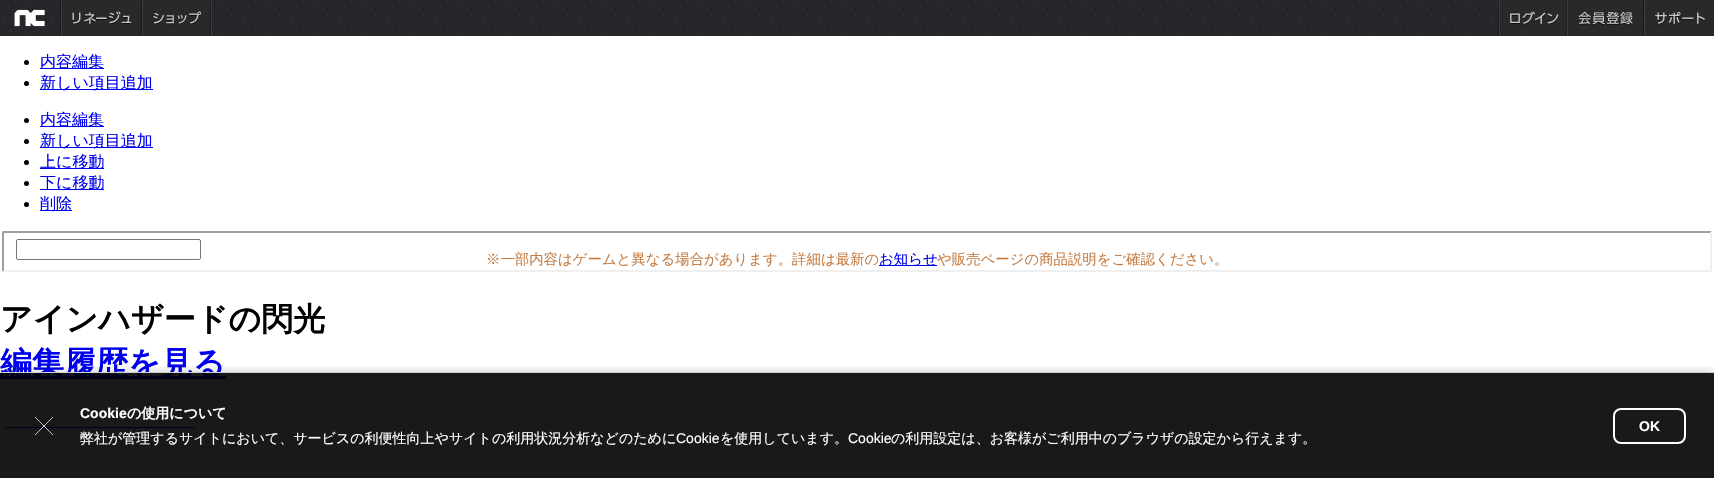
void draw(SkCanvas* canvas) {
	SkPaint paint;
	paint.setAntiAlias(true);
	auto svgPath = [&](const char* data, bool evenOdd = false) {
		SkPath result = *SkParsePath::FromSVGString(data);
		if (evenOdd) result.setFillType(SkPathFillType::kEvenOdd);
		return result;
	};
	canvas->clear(0xffffffff);
	canvas->drawImageRect(SkImages::DeferredFromEncodedData(SkData::MakeFromFileName("img1.png")), SkRect::MakeXYWH(0, 0, 1498, 36), SkSamplingOptions());
	paint.setColor(0xff3c3b40);
	canvas->drawRect(SkRect::MakeXYWH(61, 0, 1, 36), paint);
	canvas->drawImageRect(SkImages::DeferredFromEncodedData(SkData::MakeFromFileName("img2.png")), SkRect::MakeXYWH(14, 9, 31, 18), SkSamplingOptions());
	paint.setColor(0xff1d1d20);
	canvas->drawRect(SkRect::MakeXYWH(60, 0, 1, 36), paint);
	paint.setColor(0xff3c3b40);
	canvas->drawRect(SkRect::MakeXYWH(142, 0, 1, 36), paint);
	paint.setColor(0xff1d1d20);
	canvas->drawRect(SkRect::MakeXYWH(141, 0, 1, 36), paint);
	canvas->drawImageRect(SkImages::DeferredFromEncodedData(SkData::MakeFromFileName("img3.png")), SkRect::MakeXYWH(62, 0, 79, 36), SkSamplingOptions());
	paint.setColor(0xff3c3b40);
	canvas->drawRect(SkRect::MakeXYWH(211, 0, 1, 36), paint);
	canvas->drawImageRect(SkImages::DeferredFromEncodedData(SkData::MakeFromFileName("img4.png")), SkRect::MakeXYWH(143, 0, 67, 36), SkSamplingOptions());
	paint.setColor(0xff1d1d20);
	canvas->drawRect(SkRect::MakeXYWH(210, 0, 1, 36), paint);
	canvas->drawRect(SkRect::MakeXYWH(1498, 0, 1, 36), paint);
	canvas->drawImageRect(SkImages::DeferredFromEncodedData(SkData::MakeFromFileName("img5.png")), SkRect::MakeXYWH(1500, 0, 66, 36), SkSamplingOptions());
	paint.setColor(0xff3c3b40);
	canvas->drawRect(SkRect::MakeXYWH(1499, 0, 1, 36), paint);
	paint.setColor(0xff1d1d20);
	canvas->drawRect(SkRect::MakeXYWH(1566, 0, 1, 36), paint);
	canvas->drawImageRect(SkImages::DeferredFromEncodedData(SkData::MakeFromFileName("img6.png")), SkRect::MakeXYWH(1568, 0, 75, 36), SkSamplingOptions());
	paint.setColor(0xff3c3b40);
	canvas->drawRect(SkRect::MakeXYWH(1567, 0, 1, 36), paint);
	paint.setColor(0xff1d1d20);
	canvas->drawRect(SkRect::MakeXYWH(1643, 0, 1, 36), paint);
	canvas->drawImageRect(SkImages::DeferredFromEncodedData(SkData::MakeFromFileName("img7.png")), SkRect::MakeXYWH(1645, 0, 69, 36), SkSamplingOptions());
	paint.setColor(0xff3c3b40);
	canvas->drawRect(SkRect::MakeXYWH(1644, 0, 1, 36), paint);
	paint.setColor(0xff000000);
	canvas->drawCircle(26.5, 62.5, 2.5, paint);
	paint.setColor(0xff0000ee);
	canvas->drawRect(SkRect::MakeXYWH(40, 68, 64, 1), paint);
	SkFont f1(fontMgr->matchFamilyStyle("WenQuanYi Zen Hei", SkFontStyle(500, SkFontStyle::kNormal_Width, SkFontStyle::kUpright_Slant)), 16);
	f1.setSubpixel(true);
	canvas->drawString("内容編集", 40, 67, f1, paint);
	paint.setColor(0xff000000);
	canvas->drawCircle(26.5, 83.5, 2.5, paint);
	paint.setColor(0xff0000ee);
	canvas->drawRect(SkRect::MakeXYWH(40, 89, 113, 1), paint);
	canvas->drawString("新しい項目追加", 40, 88, f1, paint);
	paint.setColor(0xff000000);
	canvas->drawCircle(26.5, 120.5, 2.5, paint);
	paint.setColor(0xff0000ee);
	canvas->drawRect(SkRect::MakeXYWH(40, 126, 64, 1), paint);
	canvas->drawString("内容編集", 40, 125, f1, paint);
	paint.setColor(0xff000000);
	canvas->drawCircle(26.5, 141.5, 2.5, paint);
	paint.setColor(0xff0000ee);
	canvas->drawRect(SkRect::MakeXYWH(40, 147, 113, 1), paint);
	canvas->drawString("新しい項目追加", 40, 146, f1, paint);
	paint.setColor(0xff000000);
	canvas->drawCircle(26.5, 162.5, 2.5, paint);
	paint.setColor(0xff0000ee);
	canvas->drawRect(SkRect::MakeXYWH(40, 168, 64, 1), paint);
	canvas->drawString("上に移動", 40, 167, f1, paint);
	paint.setColor(0xff000000);
	canvas->drawCircle(26.5, 183.5, 2.5, paint);
	paint.setColor(0xff0000ee);
	canvas->drawRect(SkRect::MakeXYWH(40, 189, 64, 1), paint);
	canvas->drawString("下に移動", 40, 188, f1, paint);
	paint.setColor(0xff000000);
	canvas->drawCircle(26.5, 204.5, 2.5, paint);
	paint.setColor(0xff0000ee);
	canvas->drawRect(SkRect::MakeXYWH(40, 210, 32, 1), paint);
	canvas->drawString("削除", 40, 209, f1, paint);
	paint.setColor(0xff9f9f9f);
	canvas->drawPath(svgPath("M2 231H1712L1710 233H4Z"), paint);
	paint.setColor(0xffefefef);
	canvas->drawPath(svgPath("M1712 231V272L1710 270V233Z"), paint);
	canvas->drawPath(svgPath("M1712 272H2L4 270H1710Z"), paint);
	paint.setColor(0xff9f9f9f);
	canvas->drawPath(svgPath("M2 272V231L4 233V270Z"), paint);
	paint.setStroke(true);
	paint.setStrokeWidth(1);
	paint.setColor(0xff767676);
	canvas->drawRoundRect(SkRect::MakeXYWH(16.5, 239.5, 184, 20), 1.5, 1.5, paint);
	SkFont f2(fontMgr->matchFamilyStyle("WenQuanYi Zen Hei", SkFontStyle(500, SkFontStyle::kNormal_Width, SkFontStyle::kUpright_Slant)), 14.4);
	f2.setSubpixel(true);
	paint.setStroke(false);
	paint.setColor(0xffc67d43);
	canvas->drawString("※一部内容はゲームと異なる場合があります。詳細は最新の", 486, 264, f2, paint);
	paint.setColor(0xff0000ee);
	canvas->drawRect(SkRect::MakeXYWH(879, 265, 58, 1), paint);
	canvas->drawString("お知らせ", 879, 264, f2, paint);
	paint.setColor(0xffc67d43);
	canvas->drawString("や販売ページの商品説明をご確認ください。", 937, 264, f2, paint);
	SkFont f3(fontMgr->matchFamilyStyle("WenQuanYi Zen Hei", SkFontStyle::Bold()), 32);
	f3.setSubpixel(true);
	paint.setColor(0xff000000);
	canvas->drawString("アインハザードの閃光", 0, 330, f3, paint);
	paint.setColor(0xff0000ee);
	canvas->drawRect(SkRect::MakeXYWH(0, 376, 226, 3), paint);
	canvas->drawString("編集履歴を見る", 0, 374, f3, paint);
	canvas->drawRect(SkRect::MakeXYWH(5, 427, 190, 1), paint);
	paint.setColor(0xfff8f6ed);
	canvas->drawRect(SkRect::MakeXYWH(0, 452, 500, 26), paint);
	canvas->save();
	canvas->clipRect(SkRect::MakeXYWH(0, 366, 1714, 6));
	paint.setColor(0x33000000);
	paint.setMaskFilter(SkMaskFilter::MakeBlur(kNormal_SkBlurStyle, 5));
	canvas->drawRect(SkRect::MakeXYWH(0, 372, 1714, 106), paint);
	paint.setMaskFilter(nullptr);
	canvas->restore();
	paint.setColor(0xe6000000);
	canvas->drawRect(SkRect::MakeXYWH(0, 373, 1714, 105), paint);
	paint.setColor(0xffcccccc);
	canvas->drawRect(SkRect::MakeXYWH(0, 372, 1714, 1), paint);
	paint.setStroke(true);
	paint.setColor(0xbfffffff);
	canvas->drawPath(svgPath("M35 417L53 435"), paint);
	canvas->drawPath(svgPath("M35 435L53 417"), paint);
	SkFont f4(fontMgr->matchFamilyStyle("Liberation Sans", SkFontStyle::Bold()), 14);
	f4.setSubpixel(true);
	paint.setStroke(false);
	paint.setColor(0xffffffff);
	canvas->drawString("Cookie", 80, 418, f4, paint);
	SkFont f5(fontMgr->matchFamilyStyle("WenQuanYi Zen Hei", SkFontStyle::Bold()), 14);
	f5.setSubpixel(true);
	canvas->drawString("の使用について", 127, 418, f5, paint);
	SkFont f6(fontMgr->matchFamilyStyle("WenQuanYi Zen Hei", SkFontStyle(500, SkFontStyle::kNormal_Width, SkFontStyle::kUpright_Slant)), 14);
	f6.setSubpixel(true);
	canvas->drawString("弊社が管理するサイトにおいて、サービスの利便性向上やサイトの利用状況分析などのために", 80, 443, f6, paint);
	SkFont f7(fontMgr->matchFamilyStyle("Liberation Sans", SkFontStyle::Normal()), 14);
	f7.setSubpixel(true);
	canvas->drawString("Cookie", 676, 443, f7, paint);
	canvas->drawString("を使用しています。", 720, 443, f6, paint);
	canvas->drawString("Cookie", 848, 443, f7, paint);
	canvas->drawString("の利用設定は、お客様がご利用中のブラウザの設定から行えます。", 891, 443, f6, paint);
	paint.setStroke(true);
	paint.setStrokeWidth(2);
	canvas->drawRoundRect(SkRect::MakeXYWH(1614, 409, 71, 34), 7, 7, paint);
	paint.setStroke(false);
	canvas->drawString("OK", 1639, 431, f4, paint);
}
